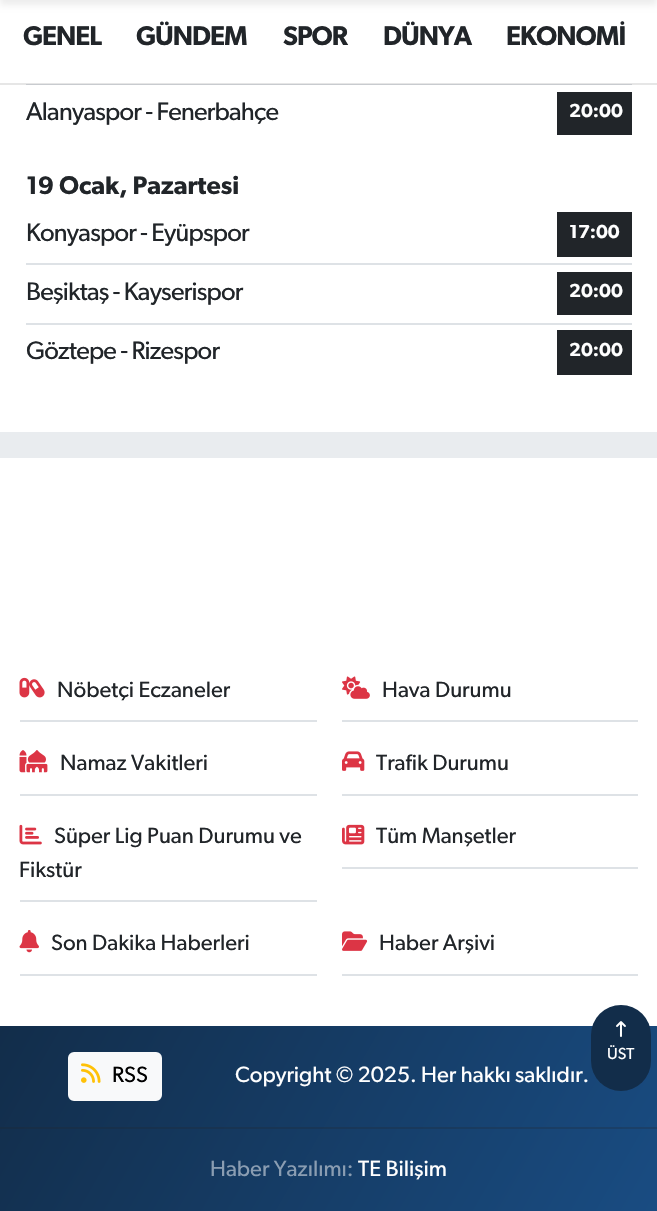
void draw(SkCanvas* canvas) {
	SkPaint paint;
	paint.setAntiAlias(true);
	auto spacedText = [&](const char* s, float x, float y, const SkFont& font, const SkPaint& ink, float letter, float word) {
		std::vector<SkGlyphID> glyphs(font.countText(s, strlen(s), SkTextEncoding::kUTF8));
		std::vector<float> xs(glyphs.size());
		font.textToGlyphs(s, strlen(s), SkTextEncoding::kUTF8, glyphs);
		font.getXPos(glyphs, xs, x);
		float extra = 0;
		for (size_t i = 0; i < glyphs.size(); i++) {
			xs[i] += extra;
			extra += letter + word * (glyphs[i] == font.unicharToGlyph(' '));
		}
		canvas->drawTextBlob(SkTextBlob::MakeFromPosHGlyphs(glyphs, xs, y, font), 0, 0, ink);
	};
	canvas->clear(0xffe9ecef);
	paint.setColor(0xffffffff);
	canvas->drawRect(SkRect::MakeXYWH(0, 0, 657, 83), paint);
	paint.setColor(0x12000000);
	paint.setMaskFilter(SkMaskFilter::MakeBlur(kNormal_SkBlurStyle, 3));
	canvas->drawRect(SkRect::MakeXYWH(0, -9, 657, 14), paint);
	paint.setMaskFilter(nullptr);
	SkFont f1(fontMgr->matchFamilyStyle("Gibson", SkFontStyle(600, SkFontStyle::kNormal_Width, SkFontStyle::kUpright_Slant)), 27);
	f1.setSubpixel(true);
	paint.setColor(0xff212529);
	spacedText("GENEL", 23, 45, f1, paint, -1, 0);
	spacedText("GÜNDEM", 136, 45, f1, paint, -1, 0);
	spacedText("SPOR", 283, 45, f1, paint, -1, 0);
	spacedText("DÜNYA", 383, 45, f1, paint, -1, 0);
	spacedText("EKONOMİ", 506, 45, f1, paint, -1, 0);
	paint.setColor(0xffffffff);
	canvas->drawRect(SkRect::MakeXYWH(0, 85, 657, 347), paint);
	paint.setColor(0xffe6e6e6);
	canvas->drawRect(SkRect::MakeXYWH(0, 83, 657, 2), paint);
	paint.setColor(0xffc8cbcf);
	canvas->drawRect(SkRect::MakeXYWH(26, 84, 606, 1), paint);
	SkFont f2(fontMgr->matchFamilyStyle("Gibson", SkFontStyle::Normal()), 25.5);
	f2.setSubpixel(true);
	paint.setColor(0xff212529);
	spacedText("Alanyaspor - Fenerbahçe", 26, 120, f2, paint, -0.75, 0);
	canvas->drawRect(SkRect::MakeXYWH(557, 92, 75, 43), paint);
	SkFont f3(fontMgr->matchFamilyStyle("Gibson", SkFontStyle(600, SkFontStyle::kNormal_Width, SkFontStyle::kUpright_Slant)), 19);
	f3.setSubpixel(true);
	paint.setColor(0xffffffff);
	canvas->drawString("20:00", 569, 117, f3, paint);
	SkFont f4(fontMgr->matchFamilyStyle("Gibson", SkFontStyle(600, SkFontStyle::kNormal_Width, SkFontStyle::kUpright_Slant)), 25.5);
	f4.setSubpixel(true);
	paint.setColor(0xff212529);
	canvas->drawString("19 Ocak, Pazartesi", 26, 194, f4, paint);
	paint.setColor(0xffdee2e6);
	canvas->drawRect(SkRect::MakeXYWH(26, 263, 606, 2), paint);
	paint.setColor(0xff212529);
	spacedText("Konyaspor - Eyüpspor", 26, 241, f2, paint, -0.75, 0);
	canvas->drawRect(SkRect::MakeXYWH(557, 212, 75, 45), paint);
	paint.setColor(0xffffffff);
	canvas->drawString("17:00", 569, 238, f3, paint);
	paint.setColor(0xffdee2e6);
	canvas->drawRect(SkRect::MakeXYWH(26, 323, 606, 2), paint);
	paint.setColor(0xff212529);
	spacedText("Beşiktaş - Kayserispor", 26, 300, f2, paint, -0.75, 0);
	canvas->drawRect(SkRect::MakeXYWH(557, 272, 75, 43), paint);
	paint.setColor(0xffffffff);
	canvas->drawString("20:00", 569, 297, f3, paint);
	paint.setColor(0xff212529);
	spacedText("Göztepe - Rizespor", 26, 359, f2, paint, -0.75, 0);
	canvas->drawRect(SkRect::MakeXYWH(557, 330, 75, 45), paint);
	paint.setColor(0xffffffff);
	canvas->drawString("20:00", 569, 356, f3, paint);
	canvas->drawRect(SkRect::MakeXYWH(0, 458, 657, 568), paint);
	paint.setColor(0xffdee2e6);
	canvas->drawRect(SkRect::MakeXYWH(20, 720, 297, 2), paint);
	canvas->drawImageRect(SkImages::DeferredFromEncodedData(SkData::MakeFromFileName("img1.png")), SkRect::MakeXYWH(19, 677, 26, 21), SkSamplingOptions());
	SkFont f5(fontMgr->matchFamilyStyle("Gibson", SkFontStyle::Normal()), 22.25);
	f5.setSubpixel(true);
	paint.setColor(0xff212529);
	canvas->drawString("Nöbetçi Eczaneler", 57, 697, f5, paint);
	paint.setColor(0xffdee2e6);
	canvas->drawRect(SkRect::MakeXYWH(342, 720, 296, 2), paint);
	canvas->drawImageRect(SkImages::DeferredFromEncodedData(SkData::MakeFromFileName("img2.png")), SkRect::MakeXYWH(342, 676, 28, 23), SkSamplingOptions());
	paint.setColor(0xff212529);
	canvas->drawString("Hava Durumu", 382, 697, f5, paint);
	paint.setColor(0xffdee2e6);
	canvas->drawRect(SkRect::MakeXYWH(20, 794, 297, 2), paint);
	canvas->drawImageRect(SkImages::DeferredFromEncodedData(SkData::MakeFromFileName("img3.png")), SkRect::MakeXYWH(19, 750, 29, 23), SkSamplingOptions());
	paint.setColor(0xff212529);
	canvas->drawString("Namaz Vakitleri", 60, 770, f5, paint);
	paint.setColor(0xffdee2e6);
	canvas->drawRect(SkRect::MakeXYWH(342, 794, 296, 2), paint);
	canvas->drawImageRect(SkImages::DeferredFromEncodedData(SkData::MakeFromFileName("img4.png")), SkRect::MakeXYWH(342, 751, 23, 20), SkSamplingOptions());
	paint.setColor(0xff212529);
	canvas->drawString("Trafik Durumu", 376, 770, f5, paint);
	paint.setColor(0xffdee2e6);
	canvas->drawRect(SkRect::MakeXYWH(20, 900, 297, 2), paint);
	canvas->drawImageRect(SkImages::DeferredFromEncodedData(SkData::MakeFromFileName("img5.png")), SkRect::MakeXYWH(19, 824, 23, 21), SkSamplingOptions());
	paint.setColor(0xff212529);
	canvas->drawString("Süper Lig Puan Durumu ve", 54, 843, f5, paint);
	canvas->drawString("Fikstür", 19, 877, f5, paint);
	paint.setColor(0xffdee2e6);
	canvas->drawRect(SkRect::MakeXYWH(342, 867, 296, 2), paint);
	canvas->drawImageRect(SkImages::DeferredFromEncodedData(SkData::MakeFromFileName("img6.png")), SkRect::MakeXYWH(342, 824, 23, 21), SkSamplingOptions());
	paint.setColor(0xff212529);
	canvas->drawString("Tüm Manşetler", 376, 843, f5, paint);
	paint.setColor(0xffdee2e6);
	canvas->drawRect(SkRect::MakeXYWH(20, 974, 297, 2), paint);
	canvas->drawImageRect(SkImages::DeferredFromEncodedData(SkData::MakeFromFileName("img7.png")), SkRect::MakeXYWH(19, 930, 20, 23), SkSamplingOptions());
	paint.setColor(0xff212529);
	canvas->drawString("Son Dakika Haberleri", 51, 950, f5, paint);
	paint.setColor(0xffdee2e6);
	canvas->drawRect(SkRect::MakeXYWH(342, 974, 296, 2), paint);
	canvas->drawImageRect(SkImages::DeferredFromEncodedData(SkData::MakeFromFileName("img8.png")), SkRect::MakeXYWH(342, 931, 26, 20), SkSamplingOptions());
	paint.setColor(0xff212529);
	canvas->drawString("Haber Arşivi", 379, 950, f5, paint);
	{
		const SkColor colors[] = {0xff122d4a, 0xff194c82};
		const float stops[] = {0, 1};
		const SkPoint ends[] = {{42, 954}, {615, 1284}};
		paint.setShader(SkGradientShader::MakeLinear(ends, colors, stops, 2, SkTileMode::kClamp));
		paint.setAlpha(255);
	}
	canvas->drawRect(SkRect::MakeXYWH(0, 1026, 657, 185), paint);
	{
		const SkColor colors[] = {0xff162b42, 0xff1b426c};
		const float stops[] = {0, 1};
		const SkPoint ends[] = {{42, 954}, {615, 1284}};
		paint.setShader(SkGradientShader::MakeLinear(ends, colors, stops, 2, SkTileMode::kClamp));
		paint.setAlpha(255);
	}
	canvas->drawRect(SkRect::MakeXYWH(0, 1127, 657, 2), paint);
	paint.setShader(nullptr);
	paint.setColor(0xfff8f9fa);
	canvas->drawRoundRect(SkRect::MakeXYWH(69, 1053, 92, 47), 5, 5, paint);
	paint.setStroke(true);
	paint.setStrokeWidth(2);
	canvas->drawRoundRect(SkRect::MakeXYWH(69, 1053, 92, 47), 5, 5, paint);
	canvas->drawImageRect(SkImages::DeferredFromEncodedData(SkData::MakeFromFileName("img9.png")), SkRect::MakeXYWH(81, 1063, 20, 20), SkSamplingOptions());
	paint.setStroke(false);
	paint.setColor(0xff000000);
	canvas->drawString("RSS", 112, 1082, f5, paint);
	paint.setColor(0xffffffff);
	canvas->drawString("Copyright © 2025. Her hakkı saklıdır.", 235, 1082, f5, paint);
	paint.setColor(0xff8a9db2);
	canvas->drawString("Haber Yazılımı:", 210, 1176, f5, paint);
	paint.setColor(0xffffffff);
	canvas->drawString("TE Bilişim", 358, 1176, f5, paint);
	paint.setColor(0xff122d4a);
	canvas->drawRoundRect(SkRect::MakeXYWH(591, 1005, 60, 86), 30, 30, paint);
	canvas->drawImageRect(SkImages::DeferredFromEncodedData(SkData::MakeFromFileName("img10.png")), SkRect::MakeXYWH(616, 1021, 10, 16), SkSamplingOptions());
	SkFont f6(fontMgr->matchFamilyStyle("Gibson", SkFontStyle::Normal()), 16);
	f6.setSubpixel(true);
	paint.setColor(0xffffffff);
	canvas->drawString("ÜST", 607, 1059, f6, paint);
}
